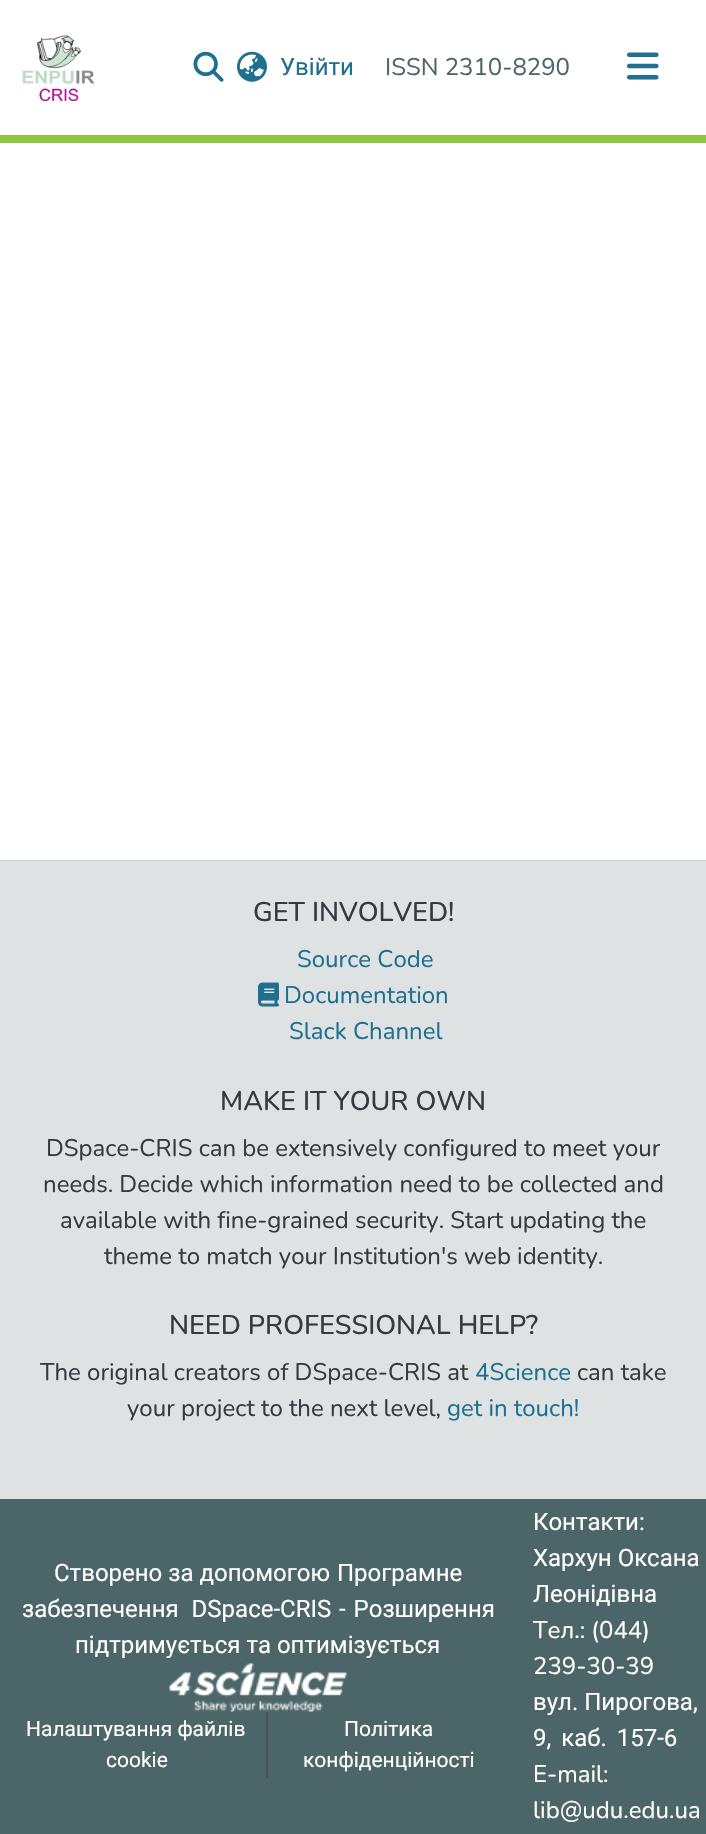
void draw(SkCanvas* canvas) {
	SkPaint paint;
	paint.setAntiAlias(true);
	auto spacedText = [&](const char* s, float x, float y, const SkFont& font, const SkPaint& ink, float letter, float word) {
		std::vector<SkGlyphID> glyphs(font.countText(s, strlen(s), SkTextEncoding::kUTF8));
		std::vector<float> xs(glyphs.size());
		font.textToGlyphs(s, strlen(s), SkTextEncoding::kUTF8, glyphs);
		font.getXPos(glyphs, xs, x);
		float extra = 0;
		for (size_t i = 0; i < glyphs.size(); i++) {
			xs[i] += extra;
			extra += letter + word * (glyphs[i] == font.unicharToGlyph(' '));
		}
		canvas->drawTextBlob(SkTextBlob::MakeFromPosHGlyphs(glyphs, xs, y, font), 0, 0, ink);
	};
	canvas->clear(0xffffffff);
	paint.setColor(0xff92c642);
	canvas->drawRect(SkRect::MakeXYWH(0, 135, 706, 8), paint);
	canvas->drawImageRect(SkImages::DeferredFromEncodedData(SkData::MakeFromFileName("img1.png")), SkRect::MakeXYWH(22, 35, 73, 66), SkSamplingOptions());
	canvas->drawImageRect(SkImages::DeferredFromEncodedData(SkData::MakeFromFileName("img2.png")), SkRect::MakeXYWH(193, 51, 31, 31), SkSamplingOptions());
	canvas->drawImageRect(SkImages::DeferredFromEncodedData(SkData::MakeFromFileName("img3.png")), SkRect::MakeXYWH(237, 51, 30, 31), SkSamplingOptions());
	SkFont f1(fontMgr->matchFamilyStyle("Roboto", SkFontStyle::Normal()), 24);
	f1.setSubpixel(true);
	paint.setColor(0xff1e6f90);
	canvas->drawString("Увійти", 280, 75, f1, paint);
	SkFont f2(fontMgr->matchFamilyStyle("Nunito", SkFontStyle::Normal()), 24);
	f2.setSubpixel(true);
	paint.setColor(0xff4b6569);
	canvas->drawString("ISSN 2310-8290", 385, 75, f2, paint);
	canvas->drawImageRect(SkImages::DeferredFromEncodedData(SkData::MakeFromFileName("img4.png")), SkRect::MakeXYWH(627, 52, 32, 28), SkSamplingOptions());
	paint.setColor(0xffced4da);
	canvas->drawRect(SkRect::MakeXYWH(0, 860, 706, 1), paint);
	paint.setColor(0xffdfe2e2);
	canvas->drawRect(SkRect::MakeXYWH(0, 861, 706, 638), paint);
	SkFont f3(fontMgr->matchFamilyStyle("Nunito", SkFontStyle(500, SkFontStyle::kNormal_Width, SkFontStyle::kUpright_Slant)), 27);
	f3.setSubpixel(true);
	paint.setColor(0xff343a40);
	canvas->drawString("GET INVOLVED!", 253, 921, f3, paint);
	paint.setColor(0xff1e6f90);
	canvas->drawString("Source Code", 297, 967, f2, paint);
	canvas->drawImageRect(SkImages::DeferredFromEncodedData(SkData::MakeFromFileName("img5.png")), SkRect::MakeXYWH(258, 982, 21, 25), SkSamplingOptions());
	canvas->drawString("Documentation", 284, 1003, f2, paint);
	canvas->drawString("Slack Channel", 289, 1039, f2, paint);
	paint.setColor(0xff343a40);
	canvas->drawString("MAKE IT YOUR OWN", 220, 1110, f3, paint);
	canvas->drawString("DSpace-CRIS can be extensively configured to meet your", 46, 1156, f2, paint);
	canvas->drawString("needs. Decide which information need to be collected and", 43, 1192, f2, paint);
	canvas->drawString("available with fine-grained security. Start updating the", 60, 1228, f2, paint);
	canvas->drawString("theme to match your Institution's web identity.", 104, 1264, f2, paint);
	canvas->drawString("NEED PROFESSIONAL HELP?", 169, 1334, f3, paint);
	canvas->drawString("The original creators of DSpace-CRIS at", 40, 1380, f2, paint);
	paint.setColor(0xff1e6f90);
	canvas->drawString("4Science", 475, 1380, f2, paint);
	paint.setColor(0xff343a40);
	canvas->drawString("can take", 577, 1380, f2, paint);
	canvas->drawString("your project to the next level,", 127, 1416, f2, paint);
	paint.setColor(0xff1e6f90);
	canvas->drawString("get in touch!", 447, 1416, f2, paint);
	paint.setColor(0xff4b6569);
	canvas->drawRect(SkRect::MakeXYWH(0, 1499, 706, 335), paint);
	paint.setColor(0xffffffff);
	canvas->drawString("Створено за допомогою", 54, 1581, f1, paint);
	canvas->drawString("Програмне", 337, 1581, f1, paint);
	spacedText("забезпечення DSpace-CRIS", 22, 1617, f1, paint, 0, 7);
	spacedText("- Розширення", 339, 1617, f1, paint, 0, 2);
	canvas->drawString("підтримується та оптимізується", 75, 1653, f1, paint);
	canvas->drawImageRect(SkImages::DeferredFromEncodedData(SkData::MakeFromFileName("img6.png")), SkRect::MakeXYWH(169, 1663, 178, 49), SkSamplingOptions());
	SkFont f4(fontMgr->matchFamilyStyle("Roboto", SkFontStyle::Normal()), 21);
	f4.setSubpixel(true);
	canvas->drawString("Налаштування файлів", 26, 1736, f4, paint);
	canvas->drawString("cookie", 106, 1767, f4, paint);
	paint.setColor(0xff495057);
	canvas->drawRect(SkRect::MakeXYWH(266, 1712, 2, 66), paint);
	paint.setColor(0xffffffff);
	canvas->drawString("Політика", 344, 1736, f4, paint);
	canvas->drawString("конфіденційності", 303, 1767, f4, paint);
	canvas->drawString("Контакти:", 533, 1530, f1, paint);
	canvas->drawString("Хархун Оксана", 533, 1566, f1, paint);
	canvas->drawString("Леонідівна", 533, 1602, f1, paint);
	canvas->drawString("Тел.: (044)", 533, 1638, f2, paint);
	canvas->drawString("239-30-39", 533, 1674, f2, paint);
	canvas->drawString("вул. Пирогова,", 533, 1710, f1, paint);
	spacedText("9, каб. 157-6", 533, 1746, f1, paint, 0, 4);
	canvas->drawString("E-mail:", 533, 1782, f2, paint);
	canvas->drawString("lib@udu.edu.ua", 533, 1818, f2, paint);
}
